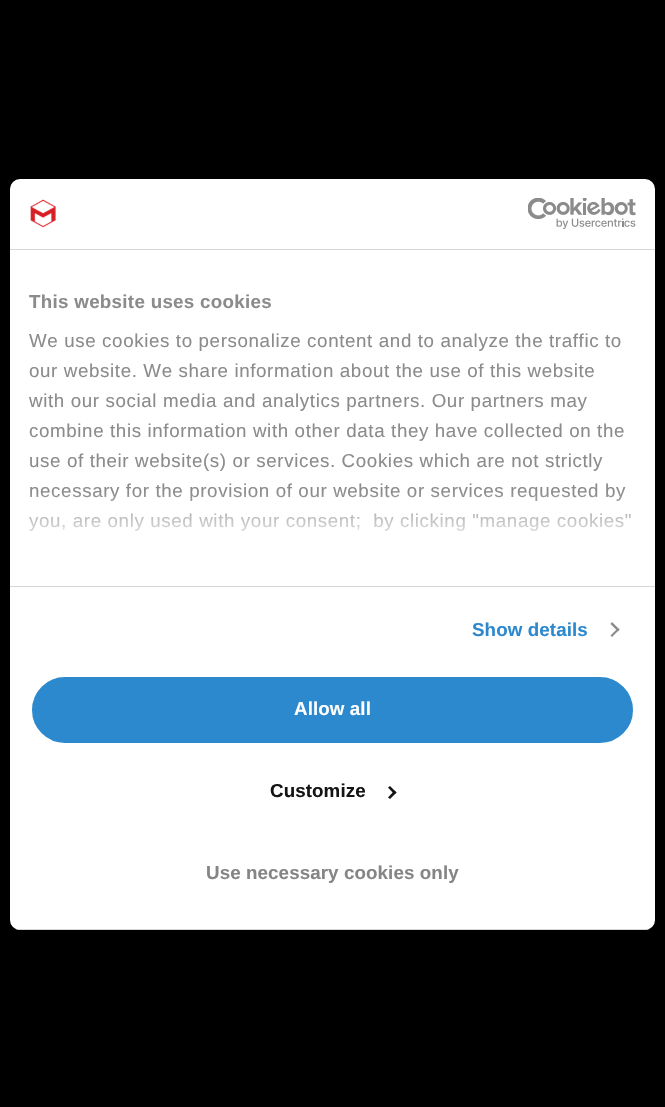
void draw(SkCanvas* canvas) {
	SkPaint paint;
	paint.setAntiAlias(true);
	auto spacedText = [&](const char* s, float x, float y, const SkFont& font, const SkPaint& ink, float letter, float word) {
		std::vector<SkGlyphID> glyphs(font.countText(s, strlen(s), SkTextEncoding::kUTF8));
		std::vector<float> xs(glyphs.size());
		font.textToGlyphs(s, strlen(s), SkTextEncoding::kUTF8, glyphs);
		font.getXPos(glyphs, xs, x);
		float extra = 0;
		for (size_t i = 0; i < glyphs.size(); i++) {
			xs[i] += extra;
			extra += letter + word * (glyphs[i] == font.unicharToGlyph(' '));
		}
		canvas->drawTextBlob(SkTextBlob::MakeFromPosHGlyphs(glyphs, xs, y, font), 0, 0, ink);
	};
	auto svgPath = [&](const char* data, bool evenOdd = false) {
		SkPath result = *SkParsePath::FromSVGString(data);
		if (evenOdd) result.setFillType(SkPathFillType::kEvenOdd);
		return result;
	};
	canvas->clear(0xff000000);
	paint.setColor(0xffffffff);
	canvas->drawRoundRect(SkRect::MakeXYWH(10, 179, 645, 751), 10, 10, paint);
	paint.setColor(0xffd6d6d6);
	canvas->drawRect(SkRect::MakeXYWH(10, 249, 645, 1), paint);
	canvas->drawImageRect(SkImages::DeferredFromEncodedData(SkData::MakeFromFileName("img1.png")), SkRect::MakeXYWH(30, 199, 26, 29), SkSamplingOptions());
	canvas->drawImageRect(SkImages::DeferredFromEncodedData(SkData::MakeFromFileName("img2.png")), SkRect::MakeXYWH(528, 198, 108, 31), SkSamplingOptions());
	canvas->drawRect(SkRect::MakeXYWH(10, 586, 645, 1), paint);
	SkFont f1(fontMgr->matchFamilyStyle("Liberation Sans", SkFontStyle::Bold()), 18.75);
	f1.setSubpixel(true);
	paint.setColor(0xff8b8b8b);
	spacedText("This website uses cookies", 29, 308, f1, paint, 0.3, 0);
	SkFont f2(fontMgr->matchFamilyStyle("Liberation Sans", SkFontStyle::Normal()), 18.75);
	f2.setSubpixel(true);
	spacedText("We use cookies to personalize content and to analyze the traffic to", 29, 347, f2, paint, 0.62, 0);
	spacedText("our website. We share information about the use of this website", 29, 377, f2, paint, 0.62, 0);
	spacedText("with our social media and analytics partners. Our partners may", 29, 407, f2, paint, 0.62, 0);
	spacedText("combine this information with other data they have collected on the", 29, 437, f2, paint, 0.62, 0);
	spacedText("use of their website(s) or services. Cookies which are not strictly", 29, 467, f2, paint, 0.62, 0);
	spacedText("necessary for the provision of our website or services requested by", 29, 497, f2, paint, 0.62, 0);
	spacedText("you, are only used with your consent;  by clicking \"manage cookies\"", 29, 527, f2, paint, 0.62, 0);
	{
		const SkColor colors[] = {0xffffffff, 0xccffffff, 0x00ffffff};
		const float stops[] = {0, 0.5, 1};
		const SkPoint ends[] = {{324, 586}, {324, 492}};
		paint.setShader(SkGradientShader::MakeLinear(ends, colors, stops, 3, SkTileMode::kClamp));
		paint.setAlpha(255);
	}
	canvas->drawRect(SkRect::MakeXYWH(28, 493, 603, 38), paint);
	paint.setShader(nullptr);
	paint.setColor(0xff2c89ce);
	spacedText("Show details", 472, 636, f1, paint, 0.1, 0);
	paint.setColor(0xff8b8b8b);
	canvas->drawPath(svgPath("M612 622L619.5 629.5L618 631.5L610.5 624Z"), paint);
	canvas->drawPath(svgPath("M618 628L619.5 629.5L612 637L610.5 635.5Z"), paint);
	canvas->save();
	canvas->clipPath(svgPath("M20 179H645C650.5 179 655 183.5 655 189V920C655 925.5 650.5 930 645 930H20C14.5 930 10 925.5 10 920V189C10 183.5 14.5 179 20 179Z"), true);
	paint.setColor(0xffd6d6d6);
	canvas->drawRect(SkRect::MakeXYWH(10, 929, 645, 1), paint);
	canvas->restore();
	paint.setColor(0xff2c89ce);
	canvas->drawRoundRect(SkRect::MakeXYWH(30.5, 675.5, 604, 69), 34.5, 34.5, paint);
	paint.setStroke(true);
	paint.setStrokeWidth(3);
	paint.setColor(0xffffffff);
	canvas->drawRoundRect(SkRect::MakeXYWH(30.5, 675.5, 604, 69), 34.5, 34.5, paint);
	paint.setStroke(false);
	spacedText("Allow all", 294, 715, f1, paint, 0.1, 0);
	paint.setColor(0xff141414);
	spacedText("Customize", 270, 797, f1, paint, 0.1, 0);
	canvas->drawPath(svgPath("M390 786L396.5 792.5L394.5 794.5L388 787.5Z"), paint);
	canvas->drawPath(svgPath("M394.5 790.5L396.5 792.5L390 799L388 797.5Z"), paint);
	paint.setColor(0xff858585);
	spacedText("Use necessary cookies only", 206, 879, f1, paint, 0.1, 0);
}
